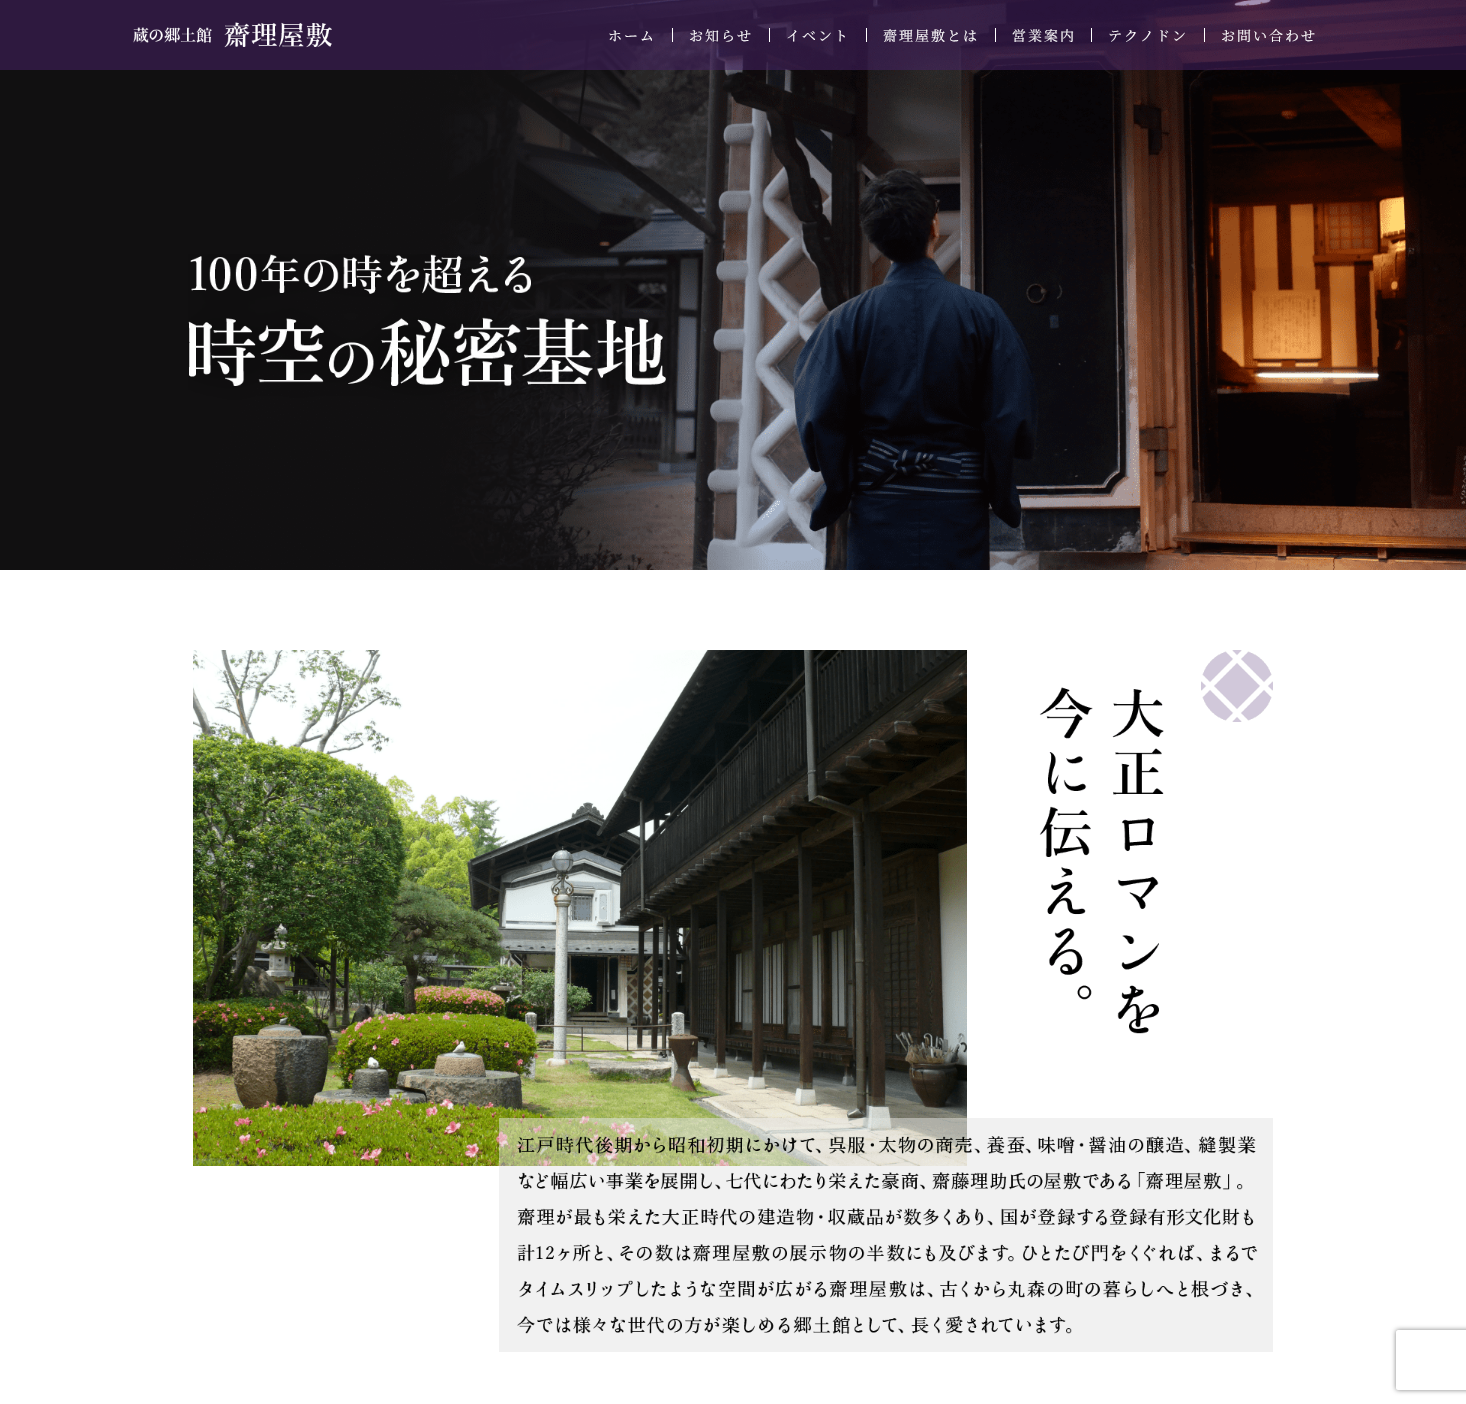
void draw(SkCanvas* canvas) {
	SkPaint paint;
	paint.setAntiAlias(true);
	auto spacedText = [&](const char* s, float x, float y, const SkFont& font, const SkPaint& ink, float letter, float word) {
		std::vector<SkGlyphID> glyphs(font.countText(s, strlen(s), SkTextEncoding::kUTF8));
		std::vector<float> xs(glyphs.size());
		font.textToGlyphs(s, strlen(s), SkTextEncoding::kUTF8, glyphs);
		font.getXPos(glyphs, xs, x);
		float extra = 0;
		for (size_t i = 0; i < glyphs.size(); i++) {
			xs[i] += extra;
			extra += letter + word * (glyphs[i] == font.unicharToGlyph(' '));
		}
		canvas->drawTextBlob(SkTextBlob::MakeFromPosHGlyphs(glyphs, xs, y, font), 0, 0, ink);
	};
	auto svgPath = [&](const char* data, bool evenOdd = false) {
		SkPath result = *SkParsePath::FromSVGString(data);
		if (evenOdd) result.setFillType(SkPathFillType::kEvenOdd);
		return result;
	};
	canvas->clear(0xffffffff);
	canvas->drawImageRect(SkImages::DeferredFromEncodedData(SkData::MakeFromFileName("img1.png")), SkRect::MakeXYWH(0, 0, 1466, 570), SkSamplingOptions());
	canvas->drawImageRect(SkImages::DeferredFromEncodedData(SkData::MakeFromFileName("img2.png")), SkRect::MakeXYWH(188, 254, 501, 146), SkSamplingOptions());
	canvas->drawImageRect(SkImages::DeferredFromEncodedData(SkData::MakeFromFileName("img3.png")), SkRect::MakeXYWH(193, 650, 1080, 702), SkSamplingOptions());
	paint.setColor(0x8049226c);
	canvas->drawRect(SkRect::MakeXYWH(0, 0, 1466, 70), paint);
	canvas->drawImageRect(SkImages::DeferredFromEncodedData(SkData::MakeFromFileName("img4.png")), SkRect::MakeXYWH(133, 22, 199, 26), SkSamplingOptions());
	SkFont f1(fontMgr->matchFamilyStyle("Noto Serif JP", SkFontStyle::Normal()), 14);
	f1.setSubpixel(true);
	paint.setColor(0xffffffff);
	spacedText("ホーム", 608, 41, f1, paint, 2, 0);
	canvas->drawRect(SkRect::MakeXYWH(672, 28, 1, 14), paint);
	spacedText("お知らせ", 689, 41, f1, paint, 2, 0);
	canvas->drawRect(SkRect::MakeXYWH(769, 28, 1, 14), paint);
	spacedText("イベント", 786, 41, f1, paint, 2, 0);
	canvas->drawRect(SkRect::MakeXYWH(866, 28, 1, 14), paint);
	spacedText("齋理屋敷とは", 883, 41, f1, paint, 2, 0);
	canvas->drawRect(SkRect::MakeXYWH(995, 28, 1, 14), paint);
	spacedText("営業案内", 1012, 41, f1, paint, 2, 0);
	canvas->drawRect(SkRect::MakeXYWH(1091, 28, 1, 14), paint);
	spacedText("テクノドン", 1108, 41, f1, paint, 2, 0);
	canvas->drawRect(SkRect::MakeXYWH(1204, 28, 1, 14), paint);
	spacedText("お問い合わせ", 1221, 41, f1, paint, 2, 0);
	canvas->save();
	canvas->clipPath(svgPath("M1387 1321H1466V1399H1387ZM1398 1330H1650C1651 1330 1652 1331 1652 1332V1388C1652 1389 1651 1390 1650 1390H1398C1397 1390 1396 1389 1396 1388V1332C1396 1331 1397 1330 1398 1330Z", true), true);
	paint.setColor(0xff808080);
	paint.setMaskFilter(SkMaskFilter::MakeBlur(kNormal_SkBlurStyle, 2.5));
	canvas->drawRoundRect(SkRect::MakeXYWH(1396, 1330, 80, 60), 2, 2, paint);
	paint.setMaskFilter(nullptr);
	canvas->restore();
}
